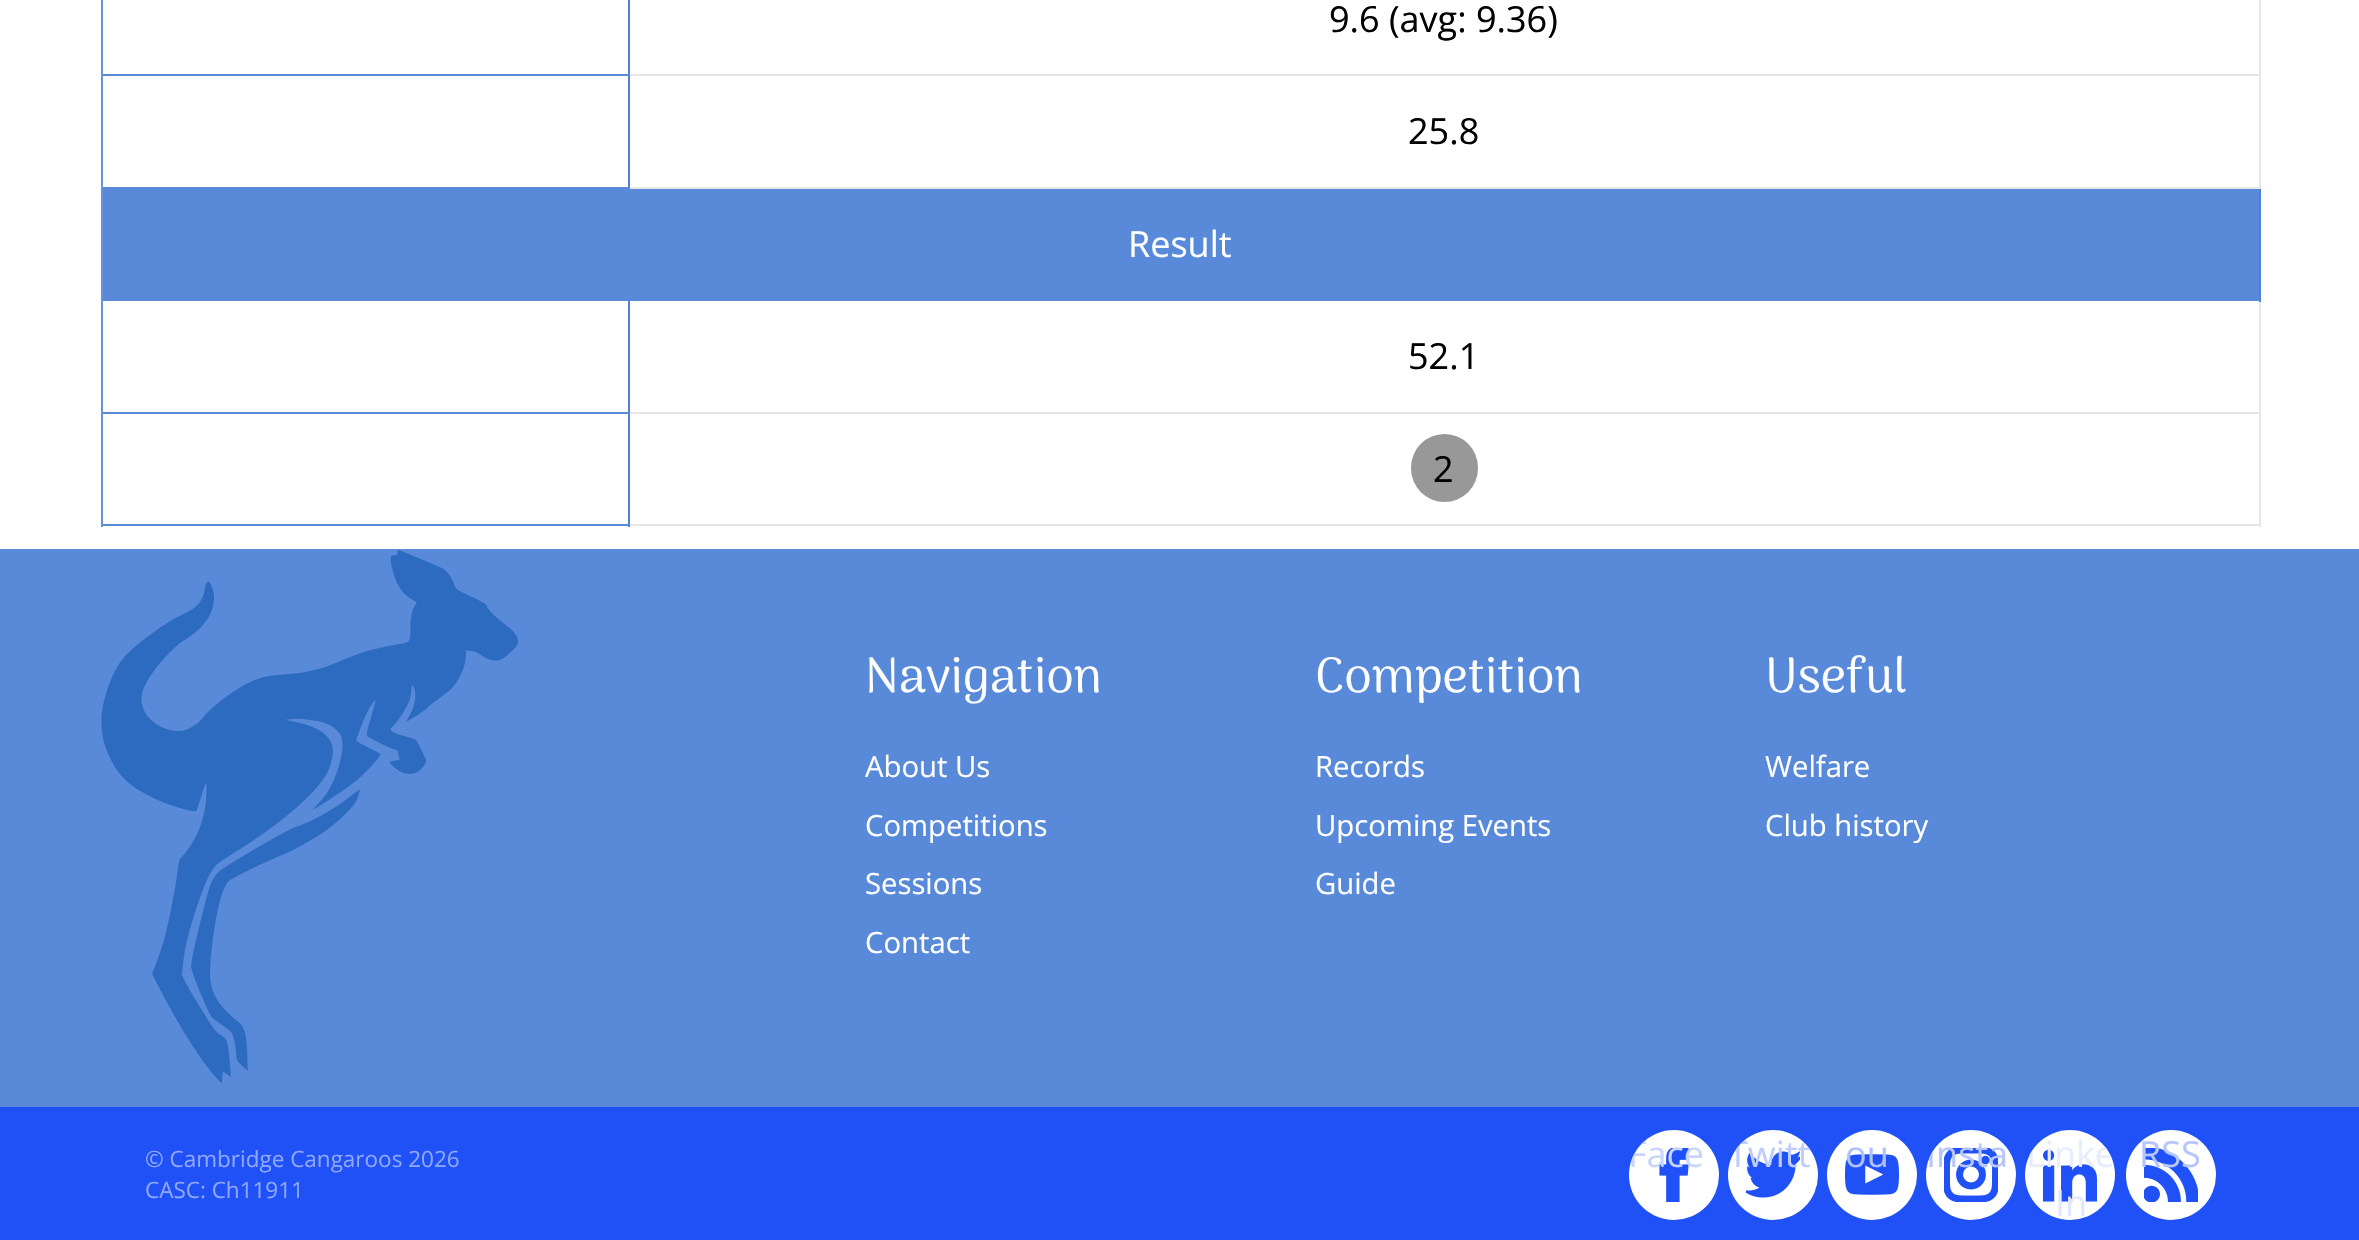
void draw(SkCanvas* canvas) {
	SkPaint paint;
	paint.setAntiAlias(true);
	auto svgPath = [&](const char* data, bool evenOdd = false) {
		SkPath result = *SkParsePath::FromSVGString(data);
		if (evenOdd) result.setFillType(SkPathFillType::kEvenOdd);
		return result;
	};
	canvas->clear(0xffffffff);
	paint.setColor(0xffe6e6e6);
	canvas->drawRect(SkRect::MakeXYWH(2259, 299, 2, 228), paint);
	paint.setColor(0xff4c81d6);
	canvas->drawRect(SkRect::MakeXYWH(2259, 187, 2, 115), paint);
	paint.setColor(0xffe6e6e6);
	canvas->drawRect(SkRect::MakeXYWH(2259, 0, 2, 189), paint);
	canvas->drawRect(SkRect::MakeXYWH(628, 187, 1633, 2), paint);
	paint.setColor(0xff4c81d6);
	canvas->drawRect(SkRect::MakeXYWH(628, 74, 2, 115), paint);
	paint.setColor(0xffe6e6e6);
	canvas->drawRect(SkRect::MakeXYWH(628, 74, 1633, 2), paint);
	paint.setColor(0xff4c81d6);
	canvas->drawRect(SkRect::MakeXYWH(628, 0, 2, 77), paint);
	paint.setColor(0xffe6e6e6);
	canvas->drawRect(SkRect::MakeXYWH(628, 524, 1633, 2), paint);
	paint.setColor(0xff4c81d6);
	canvas->drawRect(SkRect::MakeXYWH(628, 412, 2, 115), paint);
	paint.setColor(0xffe6e6e6);
	canvas->drawRect(SkRect::MakeXYWH(628, 412, 1633, 2), paint);
	paint.setColor(0xff4c81d6);
	canvas->drawRect(SkRect::MakeXYWH(628, 299, 2, 115), paint);
	paint.setColor(0xff588ad9);
	canvas->drawRect(SkRect::MakeXYWH(101, 524, 529, 2), paint);
	paint.setColor(0xff6493dc);
	canvas->drawRect(SkRect::MakeXYWH(101, 412, 2, 115), paint);
	paint.setColor(0xff588ad9);
	canvas->drawRect(SkRect::MakeXYWH(101, 412, 529, 2), paint);
	paint.setColor(0xff6493dc);
	canvas->drawRect(SkRect::MakeXYWH(101, 299, 2, 115), paint);
	paint.setColor(0xff588ad9);
	canvas->drawRect(SkRect::MakeXYWH(101, 299, 2160, 2), paint);
	paint.setColor(0xff6493dc);
	canvas->drawRect(SkRect::MakeXYWH(101, 187, 2, 115), paint);
	paint.setColor(0xff588ad9);
	canvas->drawRect(SkRect::MakeXYWH(101, 187, 529, 2), paint);
	paint.setColor(0xff6493dc);
	canvas->drawRect(SkRect::MakeXYWH(101, 74, 2, 115), paint);
	paint.setColor(0xff588ad9);
	canvas->drawRect(SkRect::MakeXYWH(101, 74, 529, 2), paint);
	paint.setColor(0xff6493dc);
	canvas->drawRect(SkRect::MakeXYWH(101, 0, 2, 77), paint);
	SkFont f1(fontMgr->matchFamilyStyle("Open Sans", SkFontStyle::Normal()), 36);
	f1.setSubpixel(true);
	paint.setColor(0xff000000);
	canvas->drawString("9.6 (avg: 9.36)", 1329, 32, f1, paint);
	canvas->drawString("25.8", 1408, 144, f1, paint);
	paint.setColor(0xff588ad9);
	canvas->drawRect(SkRect::MakeXYWH(103, 189, 2156, 110), paint);
	paint.setColor(0xffffffff);
	canvas->drawString("Result", 1128, 257, f1, paint);
	paint.setColor(0xff000000);
	canvas->drawString("52.1", 1408, 369, f1, paint);
	paint.setColor(0xff989898);
	canvas->drawRoundRect(SkRect::MakeXYWH(1411, 434, 67, 68), 33.5, 33.5, paint);
	paint.setColor(0xff000000);
	canvas->drawString("2", 1433, 482, f1, paint);
	paint.setColor(0xff588ad9);
	canvas->drawRect(SkRect::MakeXYWH(0, 549, 2359, 558), paint);
	canvas->drawImageRect(SkImages::DeferredFromEncodedData(SkData::MakeFromFileName("img1.png")), SkRect::MakeXYWH(101, 550, 417, 534), SkSamplingOptions());
	SkFont f2(fontMgr->matchFamilyStyle("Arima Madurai", SkFontStyle::Normal()), 49.5);
	f2.setSubpixel(true);
	paint.setColor(0xffffffff);
	canvas->drawString("Navigation", 865, 692, f2, paint);
	SkFont f3(fontMgr->matchFamilyStyle("Open Sans", SkFontStyle::Normal()), 29.25);
	f3.setSubpixel(true);
	canvas->drawString("About Us", 865, 777, f3, paint);
	canvas->drawString("Competitions", 865, 836, f3, paint);
	canvas->drawString("Sessions", 865, 894, f3, paint);
	canvas->drawString("Contact", 865, 953, f3, paint);
	canvas->drawString("Competition", 1315, 692, f2, paint);
	canvas->drawString("Records", 1315, 777, f3, paint);
	canvas->drawString("Upcoming Events", 1315, 836, f3, paint);
	canvas->drawString("Guide", 1315, 894, f3, paint);
	canvas->drawString("Useful", 1765, 692, f2, paint);
	canvas->drawString("Welfare", 1765, 777, f3, paint);
	canvas->drawString("Club history", 1765, 836, f3, paint);
	paint.setColor(0xff1f51f7);
	canvas->drawRect(SkRect::MakeXYWH(0, 1107, 2359, 133), paint);
	SkFont f4(fontMgr->matchFamilyStyle("Open Sans", SkFontStyle::Normal()), 22.5);
	f4.setSubpixel(true);
	paint.setColor(0xff8fa8fb);
	canvas->drawString("© Cambridge Cangaroos 2026", 145, 1167, f4, paint);
	canvas->drawString("CASC: Ch11911", 145, 1198, f4, paint);
	paint.setColor(0xffffffff);
	canvas->drawCircle(1674, 1175, 45, paint);
	canvas->drawImageRect(SkImages::DeferredFromEncodedData(SkData::MakeFromFileName("img2.png")), SkRect::MakeXYWH(1659, 1148, 30, 54), SkSamplingOptions());
	canvas->save();
	canvas->clipPath(svgPath("M1674 1130C1699 1130 1719 1150 1719 1175C1719 1200 1699 1220 1674 1220C1649 1220 1629 1200 1629 1175C1629 1150 1649 1130 1674 1130Z"), true);
	paint.setColor(0xffc9d5fd);
	canvas->drawString("Face", 1628, 1167, f1, paint);
	canvas->restore();
	paint.setColor(0xffffffff);
	canvas->drawCircle(1773, 1175, 45, paint);
	canvas->drawImageRect(SkImages::DeferredFromEncodedData(SkData::MakeFromFileName("img3.png")), SkRect::MakeXYWH(1746, 1151, 54, 47), SkSamplingOptions());
	canvas->save();
	canvas->clipPath(svgPath("M1773 1130C1798 1130 1818 1150 1818 1175C1818 1200 1798 1220 1773 1220C1748 1220 1728 1200 1728 1175C1728 1150 1748 1130 1773 1130Z"), true);
	paint.setColor(0xffbfcdfd);
	canvas->drawString("Twitt", 1728, 1167, f1, paint);
	canvas->restore();
	paint.setColor(0xffffffff);
	canvas->drawCircle(1872, 1175, 45, paint);
	canvas->drawImageRect(SkImages::DeferredFromEncodedData(SkData::MakeFromFileName("img4.png")), SkRect::MakeXYWH(1845, 1154, 54, 41), SkSamplingOptions());
	paint.setColor(0xffafc1fc);
	canvas->drawString("ou", 1845, 1167, f1, paint);
	paint.setColor(0xffffffff);
	canvas->drawCircle(1971, 1175, 45, paint);
	canvas->drawImageRect(SkImages::DeferredFromEncodedData(SkData::MakeFromFileName("img5.png")), SkRect::MakeXYWH(1944, 1148, 54, 54), SkSamplingOptions());
	canvas->save();
	canvas->clipPath(svgPath("M1971 1130C1996 1130 2016 1150 2016 1175C2016 1200 1996 1220 1971 1220C1946 1220 1926 1200 1926 1175C1926 1150 1946 1130 1971 1130Z"), true);
	paint.setColor(0xffb6c6fc);
	canvas->drawString("Insta", 1926, 1167, f1, paint);
	canvas->restore();
	paint.setColor(0xffffffff);
	canvas->drawCircle(2070, 1175, 45, paint);
	canvas->drawImageRect(SkImages::DeferredFromEncodedData(SkData::MakeFromFileName("img6.png")), SkRect::MakeXYWH(2043, 1149, 54, 53), SkSamplingOptions());
	canvas->save();
	canvas->clipPath(svgPath("M2070 1130C2095 1130 2115 1150 2115 1175C2115 1200 2095 1220 2070 1220C2045 1220 2025 1200 2025 1175C2025 1150 2045 1130 2070 1130Z"), true);
	paint.setColor(0xffe8edfe);
	canvas->drawString("Linke", 2026, 1167, f1, paint);
	canvas->restore();
	paint.setColor(0xffe1e7fe);
	canvas->drawString("In", 2055, 1216, f1, paint);
	paint.setColor(0xffffffff);
	canvas->drawCircle(2171, 1175, 45, paint);
	canvas->drawImageRect(SkImages::DeferredFromEncodedData(SkData::MakeFromFileName("img7.png")), SkRect::MakeXYWH(2144, 1148, 54, 54), SkSamplingOptions());
	paint.setColor(0xffb6c6fc);
	canvas->drawString("RSS", 2139, 1167, f1, paint);
}
